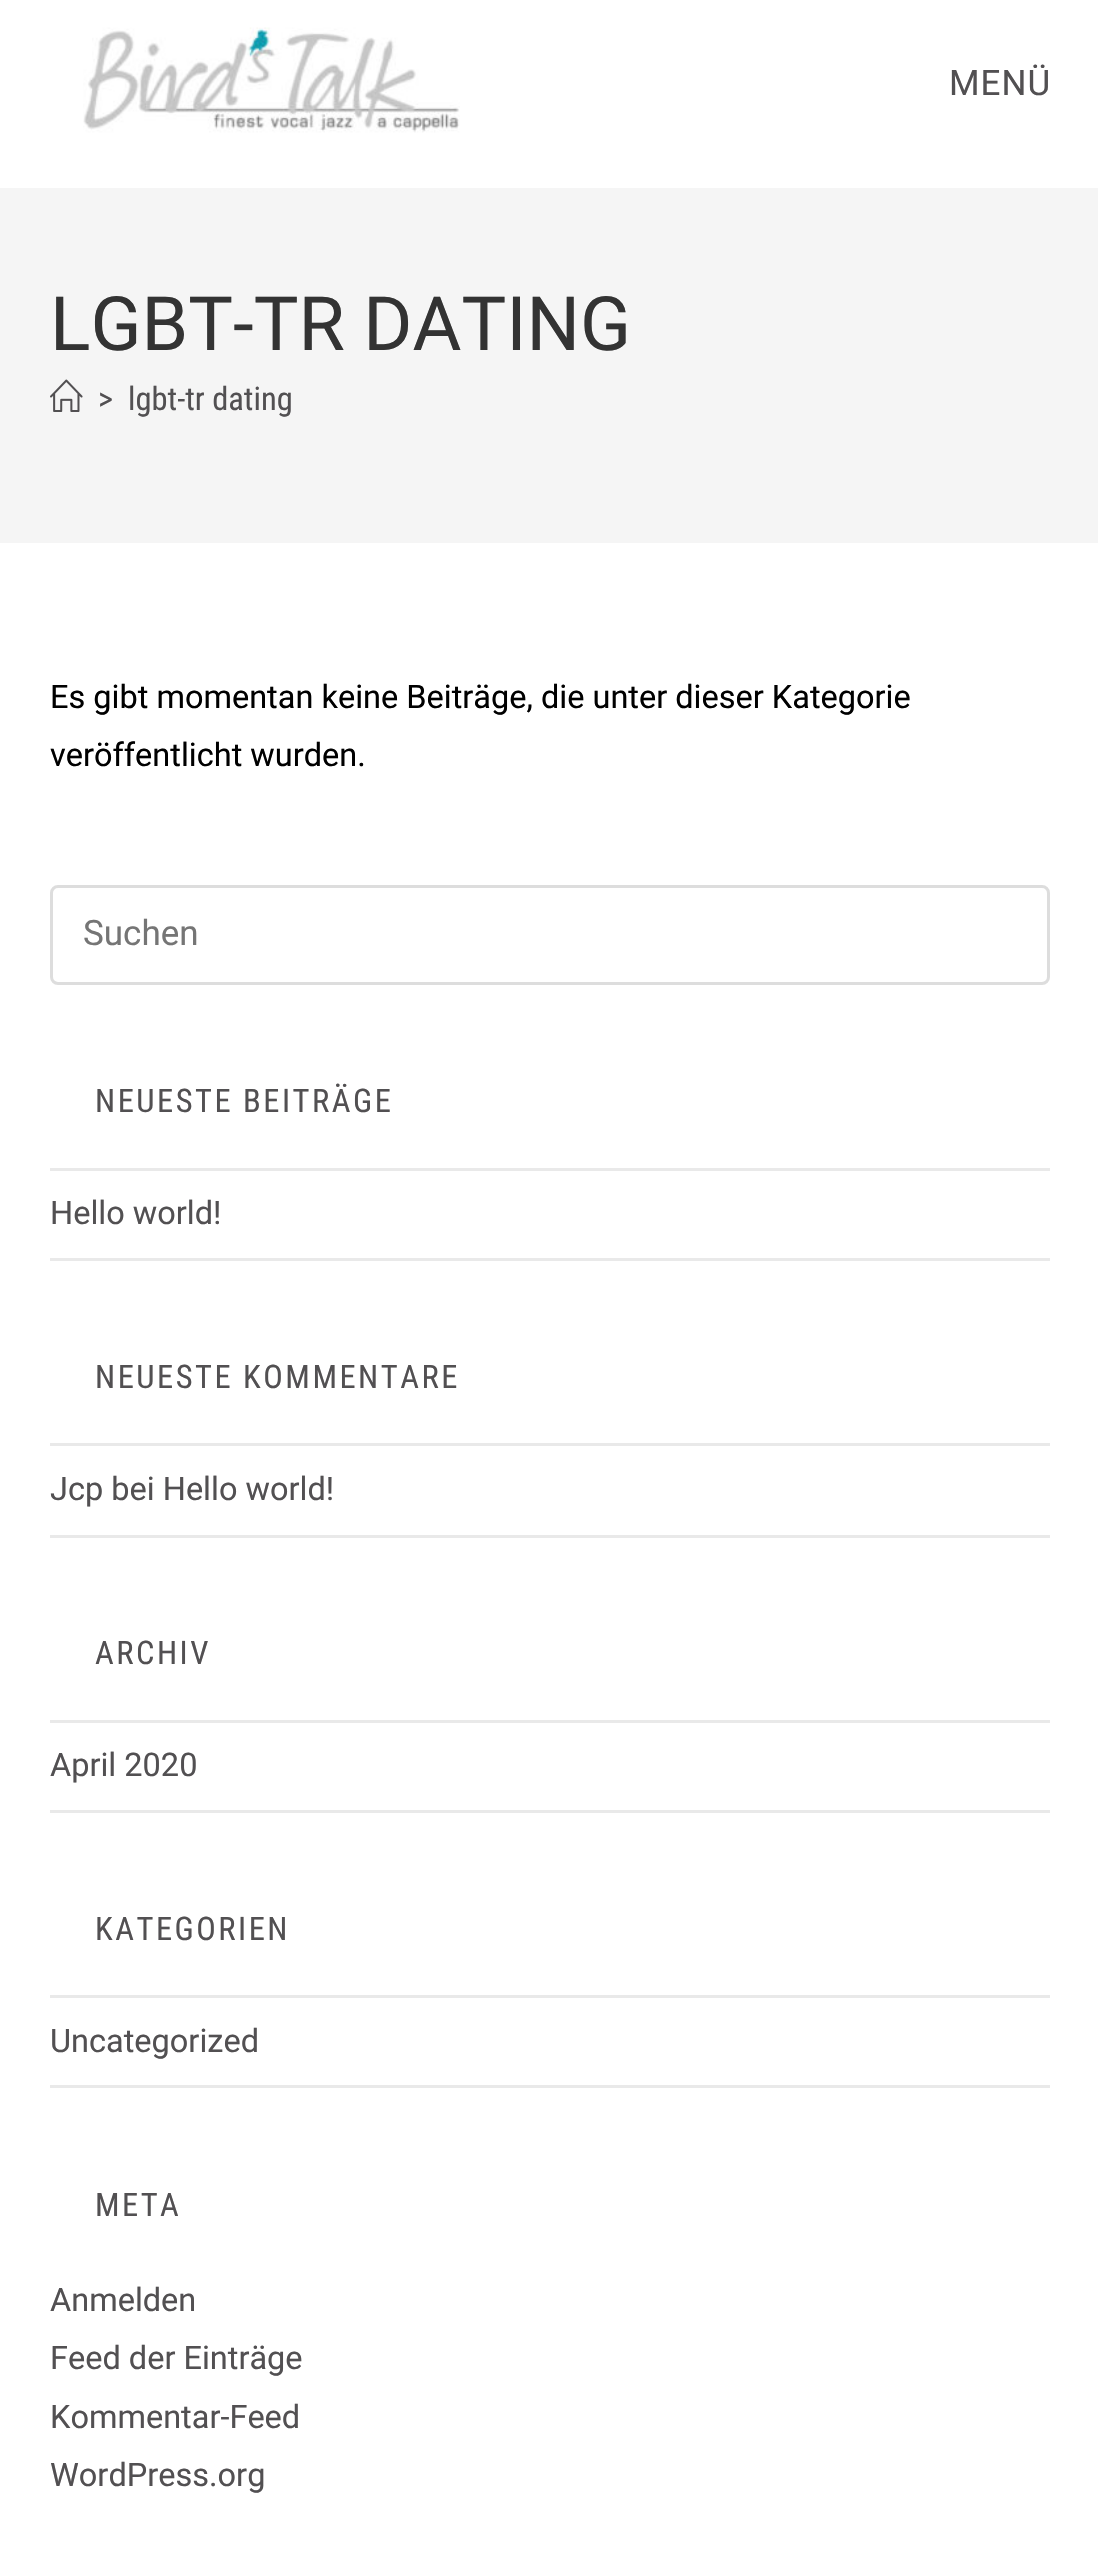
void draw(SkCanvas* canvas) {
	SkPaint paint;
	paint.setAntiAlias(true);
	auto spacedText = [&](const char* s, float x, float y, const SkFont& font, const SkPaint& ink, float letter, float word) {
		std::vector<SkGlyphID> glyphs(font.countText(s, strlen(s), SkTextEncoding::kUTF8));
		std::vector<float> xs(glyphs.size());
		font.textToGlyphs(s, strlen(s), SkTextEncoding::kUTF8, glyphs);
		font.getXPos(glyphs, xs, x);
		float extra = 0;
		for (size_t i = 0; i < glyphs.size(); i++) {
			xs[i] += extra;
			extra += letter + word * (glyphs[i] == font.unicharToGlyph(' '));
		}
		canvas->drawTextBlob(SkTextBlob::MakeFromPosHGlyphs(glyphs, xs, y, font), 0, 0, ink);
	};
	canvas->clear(0xffffffff);
	canvas->drawImageRect(SkImages::DeferredFromEncodedData(SkData::MakeFromFileName("img1.png")), SkRect::MakeXYWH(83, 27, 377, 106), SkSamplingOptions());
	SkFont f1(fontMgr->matchFamilyStyle("Roboto", SkFontStyle::Normal()), 35);
	f1.setSubpixel(true);
	paint.setColor(0xff525052);
	spacedText("MENÜ", 949, 95, f1, paint, 1, 0);
	paint.setColor(0xfff5f5f5);
	canvas->drawRect(SkRect::MakeXYWH(0, 188, 1098, 355), paint);
	SkFont f2(fontMgr->matchFamilyStyle("Roboto", SkFontStyle::Normal()), 75);
	f2.setSubpixel(true);
	paint.setColor(0xff333333);
	canvas->drawString("LGBT-TR DATING", 50, 350, f2, paint);
	canvas->drawImageRect(SkImages::DeferredFromEncodedData(SkData::MakeFromFileName("img2.png")), SkRect::MakeXYWH(50, 379, 33, 33), SkSamplingOptions());
	SkFont f3(fontMgr->matchFamilyStyle("Roboto Condensed", SkFontStyle::Normal()), 32.5);
	f3.setSubpixel(true);
	paint.setColor(0xff525052);
	canvas->drawString(">", 98, 410, f3, paint);
	canvas->drawString("lgbt-tr dating", 128, 410, f3, paint);
	SkFont f4(fontMgr->matchFamilyStyle("Roboto", SkFontStyle::Normal()), 32.5);
	f4.setSubpixel(true);
	paint.setColor(0xff000000);
	canvas->drawString("Es gibt momentan keine Beiträge, die unter dieser Kategorie", 50, 708, f4, paint);
	canvas->drawString("veröffentlicht wurden.", 50, 766, f4, paint);
	paint.setStroke(true);
	paint.setStrokeWidth(3);
	paint.setColor(0xffdddddd);
	canvas->drawRoundRect(SkRect::MakeXYWH(51.5, 886.5, 997, 97), 6.5, 6.5, paint);
	paint.setStroke(false);
	paint.setColor(0xff757575);
	canvas->drawString("Suchen", 83, 945, f1, paint);
	paint.setColor(0xff525052);
	spacedText("NEUESTE BEITRÄGE", 95, 1112, f3, paint, 2.5, 0);
	paint.setColor(0xffe9e9e9);
	canvas->drawRect(SkRect::MakeXYWH(50, 1168, 1000, 3), paint);
	canvas->drawRect(SkRect::MakeXYWH(50, 1258, 1000, 3), paint);
	paint.setColor(0xff525052);
	canvas->drawString("Hello world!", 50, 1224, f4, paint);
	spacedText("NEUESTE KOMMENTARE", 95, 1388, f3, paint, 2.5, 0);
	paint.setColor(0xffe9e9e9);
	canvas->drawRect(SkRect::MakeXYWH(50, 1443, 1000, 3), paint);
	canvas->drawRect(SkRect::MakeXYWH(50, 1535, 1000, 3), paint);
	paint.setColor(0xff525052);
	canvas->drawString("Jcp bei Hello world!", 50, 1500, f4, paint);
	spacedText("ARCHIV", 95, 1664, f3, paint, 2.5, 0);
	paint.setColor(0xffe9e9e9);
	canvas->drawRect(SkRect::MakeXYWH(50, 1720, 1000, 3), paint);
	canvas->drawRect(SkRect::MakeXYWH(50, 1810, 1000, 3), paint);
	paint.setColor(0xff525052);
	canvas->drawString("April 2020", 50, 1776, f4, paint);
	spacedText("KATEGORIEN", 95, 1940, f3, paint, 2.5, 0);
	paint.setColor(0xffe9e9e9);
	canvas->drawRect(SkRect::MakeXYWH(50, 1995, 1000, 3), paint);
	canvas->drawRect(SkRect::MakeXYWH(50, 2085, 1000, 3), paint);
	paint.setColor(0xff525052);
	canvas->drawString("Uncategorized", 50, 2052, f4, paint);
	spacedText("META", 95, 2216, f3, paint, 2.5, 0);
	canvas->drawString("Anmelden", 50, 2311, f4, paint);
	canvas->drawString("Feed der Einträge", 50, 2369, f4, paint);
	canvas->drawString("Kommentar-Feed", 50, 2428, f4, paint);
	canvas->drawString("WordPress.org", 50, 2486, f4, paint);
}
